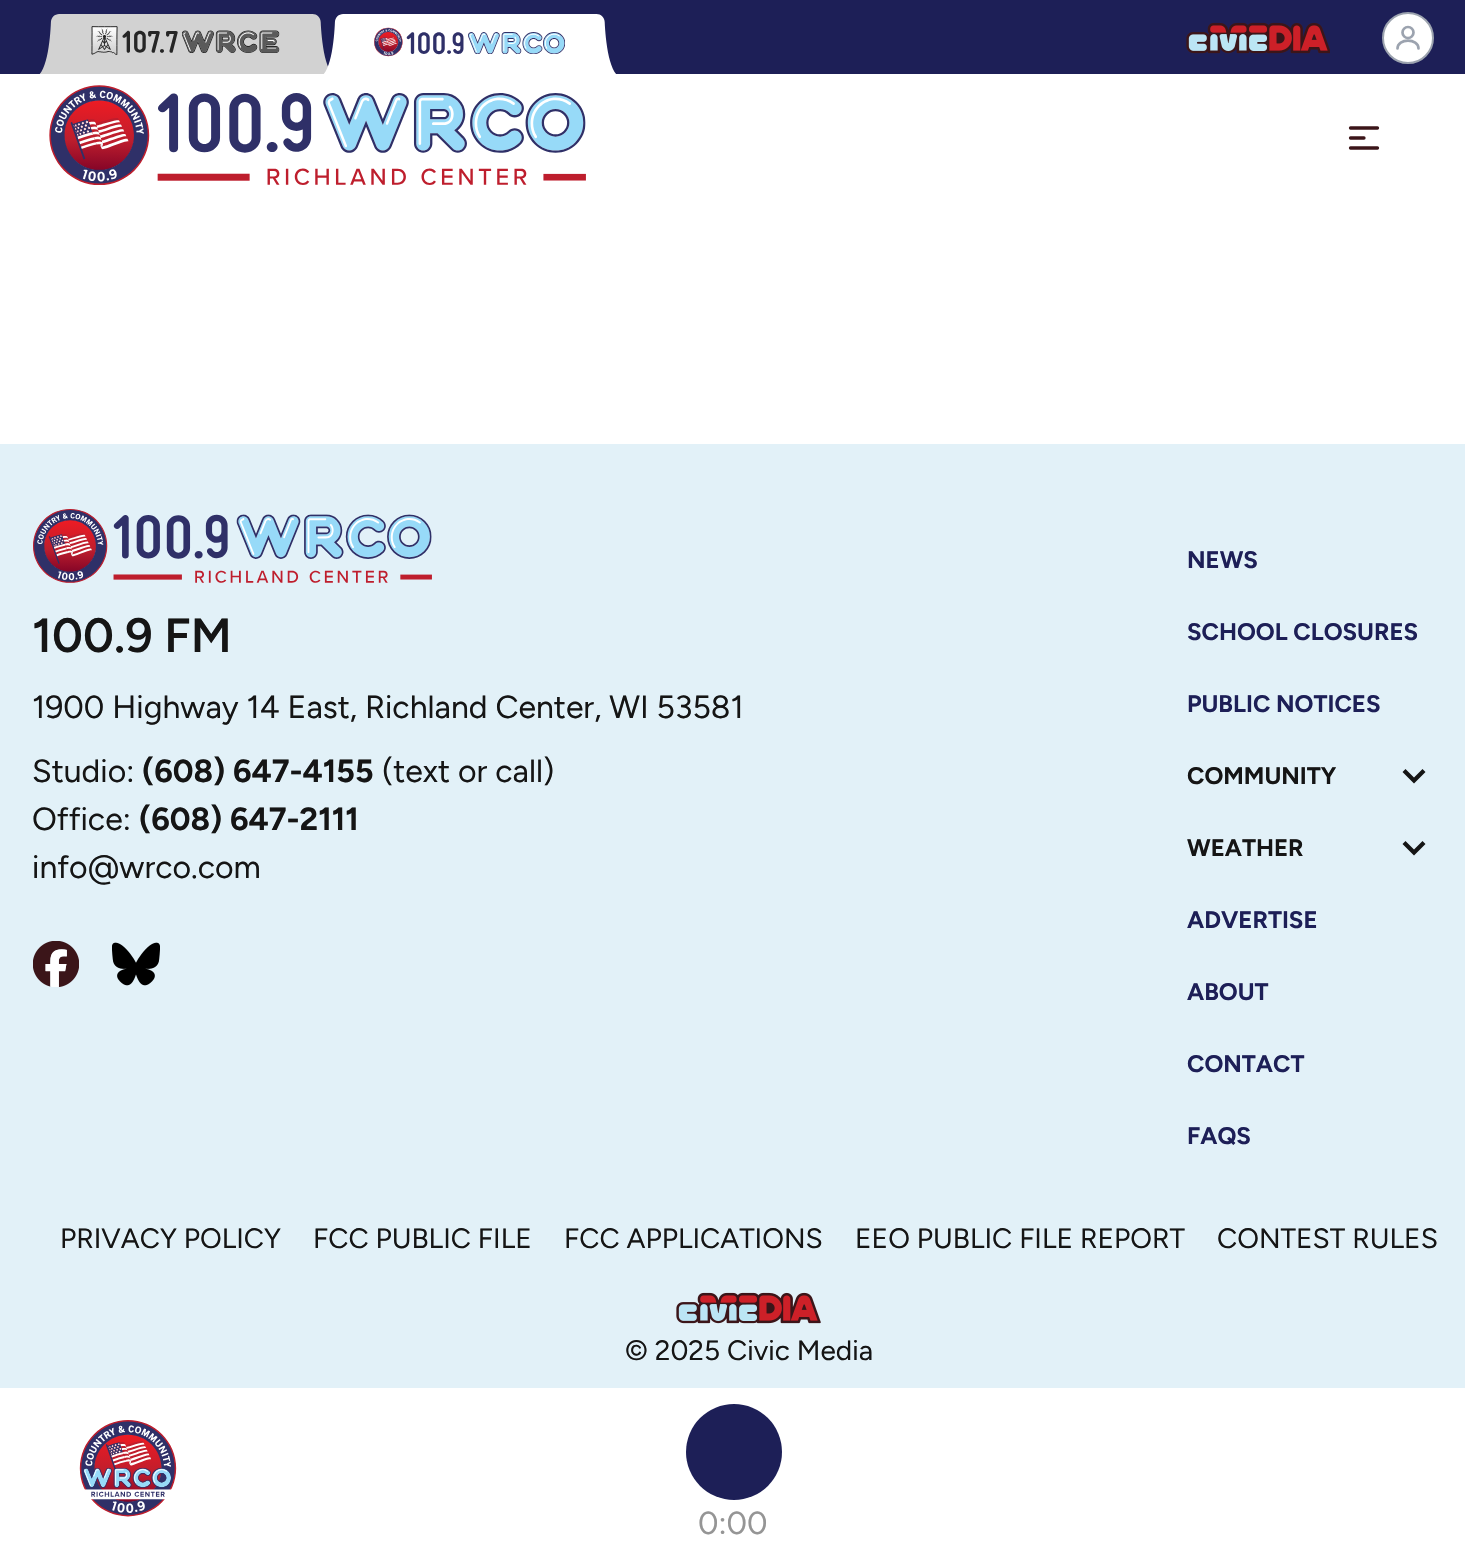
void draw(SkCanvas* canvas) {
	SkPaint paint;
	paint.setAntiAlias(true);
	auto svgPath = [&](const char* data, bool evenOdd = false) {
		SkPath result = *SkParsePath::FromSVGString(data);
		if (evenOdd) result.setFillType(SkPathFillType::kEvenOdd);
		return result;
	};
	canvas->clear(0xffffffff);
	paint.setColor(0xff1d1f57);
	canvas->drawRect(SkRect::MakeXYWH(0, 0, 1465, 74), paint);
	canvas->drawImageRect(SkImages::DeferredFromEncodedData(SkData::MakeFromFileName("img1.png")), SkRect::MakeXYWH(39, 14, 289, 60), SkSamplingOptions());
	canvas->drawImageRect(SkImages::DeferredFromEncodedData(SkData::MakeFromFileName("img2.png")), SkRect::MakeXYWH(323, 14, 293, 60), SkSamplingOptions());
	canvas->drawImageRect(SkImages::DeferredFromEncodedData(SkData::MakeFromFileName("img3.png")), SkRect::MakeXYWH(1186, 22, 144, 32), SkSamplingOptions());
	paint.setColor(0xffffffff);
	canvas->drawCircle(1408, 38, 25, paint);
	paint.setStroke(true);
	paint.setStrokeWidth(2);
	paint.setColor(0xff9ca3af);
	canvas->drawCircle(1408, 38, 25, paint);
	paint.setStrokeWidth(2.7);
	canvas->drawCircle(1408, 32.5, 5.5, paint);
	paint.setStrokeCap(SkPaint::kRound_Cap);
	canvas->drawPath(svgPath("M1397.5 48.5C1397.5 38 1418.5 38 1418.5 48.5"), paint);
	canvas->drawImageRect(SkImages::DeferredFromEncodedData(SkData::MakeFromFileName("img4.png")), SkRect::MakeXYWH(49, 85, 537, 100), SkSamplingOptions());
	paint.setStrokeWidth(3.3);
	paint.setStrokeJoin(SkPaint::kRound_Join);
	paint.setColor(0xff3b1519);
	canvas->drawPath(svgPath("M1350.5 128H1377.5M1350.5 138H1364M1350.5 148H1377.5"), paint);
	paint.setStroke(false);
	paint.setColor(0xffe2f1f8);
	canvas->drawRect(SkRect::MakeXYWH(0, 444, 1465, 944), paint);
	canvas->drawImageRect(SkImages::DeferredFromEncodedData(SkData::MakeFromFileName("img5.png")), SkRect::MakeXYWH(33, 509, 399, 74), SkSamplingOptions());
	SkFont f1(fontMgr->matchFamilyStyle("Figtree", SkFontStyle(600, SkFontStyle::kNormal_Width, SkFontStyle::kUpright_Slant)), 48);
	f1.setSubpixel(true);
	paint.setColor(0xff151515);
	canvas->drawString("100.9 FM", 32, 652, f1, paint);
	SkFont f2(fontMgr->matchFamilyStyle("Figtree", SkFontStyle::Normal()), 32);
	f2.setSubpixel(true);
	canvas->drawString("1900 Highway 14 East, Richland Center, WI 53581", 32, 718, f2, paint);
	canvas->drawString("Studio:", 32, 782, f2, paint);
	SkFont f3(fontMgr->matchFamilyStyle("Figtree", SkFontStyle::Bold()), 32);
	f3.setSubpixel(true);
	canvas->drawString("(608) 647-4155", 142, 782, f3, paint);
	canvas->drawString("(text or call)", 382, 782, f2, paint);
	canvas->drawString("Office:", 32, 830, f2, paint);
	canvas->drawString("(608) 647-2111", 139, 830, f3, paint);
	canvas->drawString("info@wrco.com", 32, 878, f2, paint);
	canvas->drawImageRect(SkImages::DeferredFromEncodedData(SkData::MakeFromFileName("img6.png")), SkRect::MakeXYWH(33, 941, 46, 46), SkSamplingOptions());
	canvas->drawImageRect(SkImages::DeferredFromEncodedData(SkData::MakeFromFileName("img7.png")), SkRect::MakeXYWH(112, 942, 48, 44), SkSamplingOptions());
	SkFont f4(fontMgr->matchFamilyStyle("Figtree", SkFontStyle::Bold()), 24);
	f4.setSubpixel(true);
	paint.setColor(0xff1d1f57);
	canvas->drawString("NEWS", 1187, 568, f4, paint);
	canvas->drawString("SCHOOL CLOSURES", 1187, 640, f4, paint);
	canvas->drawString("PUBLIC NOTICES", 1187, 712, f4, paint);
	paint.setColor(0xff151515);
	canvas->drawString("COMMUNITY", 1187, 784, f4, paint);
	canvas->drawPath(svgPath("M1405.5 769L1402.5 772L1414 783.5L1425.5 772L1422.5 769L1414 777.5Z"), paint);
	canvas->drawString("WEATHER", 1187, 856, f4, paint);
	canvas->drawPath(svgPath("M1405.5 841L1402.5 844L1414 855.5L1425.5 844L1422.5 841L1414 849.5Z"), paint);
	paint.setColor(0xff1d1f57);
	canvas->drawString("ADVERTISE", 1187, 928, f4, paint);
	canvas->drawString("ABOUT", 1187, 1000, f4, paint);
	canvas->drawString("CONTACT", 1187, 1072, f4, paint);
	canvas->drawString("FAQS", 1187, 1144, f4, paint);
	SkFont f5(fontMgr->matchFamilyStyle("Figtree", SkFontStyle::Normal()), 28);
	f5.setSubpixel(true);
	paint.setColor(0xff151515);
	canvas->drawString("PRIVACY POLICY", 60, 1248, f5, paint);
	canvas->drawString("FCC PUBLIC FILE", 313, 1248, f5, paint);
	canvas->drawString("FCC APPLICATIONS", 564, 1248, f5, paint);
	canvas->drawString("EEO PUBLIC FILE REPORT", 855, 1248, f5, paint);
	canvas->drawString("CONTEST RULES", 1217, 1248, f5, paint);
	canvas->drawImageRect(SkImages::DeferredFromEncodedData(SkData::MakeFromFileName("img8.png")), SkRect::MakeXYWH(676, 1292, 145, 32), SkSamplingOptions());
	canvas->drawString("© 2025 Civic Media", 625, 1360, f5, paint);
	canvas->drawImageRect(SkImages::DeferredFromEncodedData(SkData::MakeFromFileName("img9.png")), SkRect::MakeXYWH(79, 1420, 98, 97), SkSamplingOptions());
	paint.setColor(0xff1d1f57);
	canvas->drawCircle(734, 1452, 48, paint);
	paint.setColor(0xff959595);
	canvas->drawString("0:00", 698, 1534, f2, paint);
}
